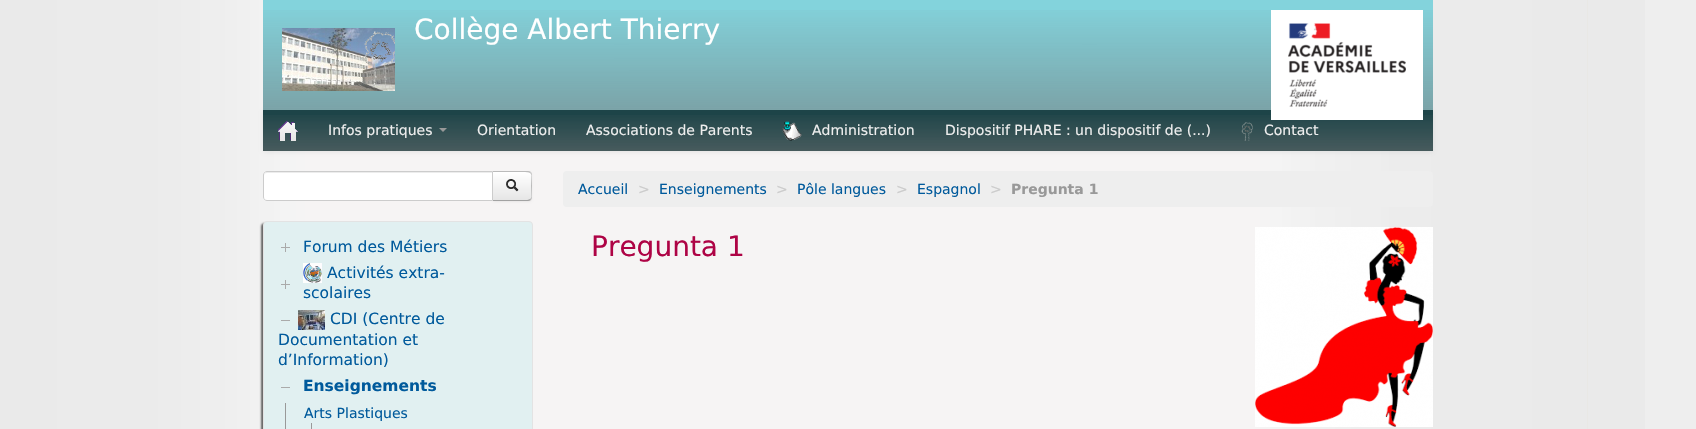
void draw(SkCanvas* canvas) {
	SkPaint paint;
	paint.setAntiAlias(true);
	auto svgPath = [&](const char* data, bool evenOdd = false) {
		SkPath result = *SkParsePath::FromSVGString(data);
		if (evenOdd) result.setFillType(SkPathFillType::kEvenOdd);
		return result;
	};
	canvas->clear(0xffeeeeee);
	canvas->drawImageRect(SkImages::DeferredFromEncodedData(SkData::MakeFromFileName("img1.png")), SkRect::MakeXYWH(0, 0, 1645, 429), SkSamplingOptions());
	paint.setColor(0xff1d4448);
	canvas->drawRect(SkRect::MakeXYWH(263, 110, 1170, 41), paint);
	canvas->drawImageRect(SkImages::DeferredFromEncodedData(SkData::MakeFromFileName("img5.png")), SkRect::MakeXYWH(263, 115, 1170, 36), SkSamplingOptions());
	canvas->save();
	canvas->clipPath(svgPath("M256 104H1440V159H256ZM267 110H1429C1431 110 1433 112 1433 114V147C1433 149 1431 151 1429 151H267C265 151 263 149 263 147V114C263 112 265 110 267 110Z", true), true);
	paint.setColor(0x12000000);
	paint.setMaskFilter(SkMaskFilter::MakeBlur(kNormal_SkBlurStyle, 2));
	canvas->drawRoundRect(SkRect::MakeXYWH(263, 111, 1170, 41), 4, 4, paint);
	paint.setMaskFilter(nullptr);
	canvas->restore();
	paint.setColor(0xff83d3dc);
	canvas->drawRect(SkRect::MakeXYWH(263, 0, 1170, 110), paint);
	canvas->drawImageRect(SkImages::DeferredFromEncodedData(SkData::MakeFromFileName("img2.png")), SkRect::MakeXYWH(263, 10, 1170, 100), SkSamplingOptions());
	canvas->drawImageRect(SkImages::DeferredFromEncodedData(SkData::MakeFromFileName("img3.png")), SkRect::MakeXYWH(282, 28, 113, 63), SkSamplingOptions());
	SkFont f1(fontMgr->matchFamilyStyle("DejaVu Sans", SkFontStyle::Normal()), 28);
	f1.setSubpixel(true);
	paint.setColor(0xffffffff);
	canvas->drawString("Collège Albert Thierry", 414, 39, f1, paint);
	canvas->drawRect(SkRect::MakeXYWH(1271, 10, 152, 110), paint);
	canvas->drawImageRect(SkImages::DeferredFromEncodedData(SkData::MakeFromFileName("img4.png")), SkRect::MakeXYWH(1288, 23, 118, 84), SkSamplingOptions());
	canvas->drawImageRect(SkImages::DeferredFromEncodedData(SkData::MakeFromFileName("img6.png")), SkRect::MakeXYWH(278, 121, 20, 20), SkSamplingOptions());
	SkFont f2(fontMgr->matchFamilyStyle("DejaVu Sans", SkFontStyle::Normal()), 14);
	f2.setSubpixel(true);
	paint.setColor(0xffeeeeee);
	canvas->drawString("Infos pratiques", 328, 135, f2, paint);
	paint.setColor(0xff999999);
	canvas->drawPath(svgPath("M439 128H447L443 132Z"), paint);
	paint.setColor(0xffeeeeee);
	canvas->drawString("Orientation", 477, 135, f2, paint);
	canvas->drawString("Associations de Parents", 586, 135, f2, paint);
	canvas->drawImageRect(SkImages::DeferredFromEncodedData(SkData::MakeFromFileName("img7.png")), SkRect::MakeXYWH(782, 121, 20, 20), SkSamplingOptions());
	canvas->drawString("Administration", 812, 135, f2, paint);
	canvas->drawString("Dispositif PHARE : un dispositif de (...)", 945, 135, f2, paint);
	canvas->drawImageRect(SkImages::DeferredFromEncodedData(SkData::MakeFromFileName("img8.png")), SkRect::MakeXYWH(1241, 122, 12, 19), SkSamplingOptions());
	canvas->drawString("Contact", 1264, 135, f2, paint);
	canvas->drawRoundRect(SkRect::MakeXYWH(563, 171, 870, 36), 4, 4, paint);
	paint.setColor(0xff005a9c);
	canvas->drawString("Accueil", 578, 194, f2, paint);
	paint.setColor(0xffcccccc);
	canvas->drawString(">", 638, 194, f2, paint);
	paint.setColor(0xff005a9c);
	canvas->drawString("Enseignements", 659, 194, f2, paint);
	paint.setColor(0xffcccccc);
	canvas->drawString(">", 776, 194, f2, paint);
	paint.setColor(0xff005a9c);
	canvas->drawString("Pôle langues", 797, 194, f2, paint);
	paint.setColor(0xffcccccc);
	canvas->drawString(">", 896, 194, f2, paint);
	paint.setColor(0xff005a9c);
	canvas->drawString("Espagnol", 917, 194, f2, paint);
	paint.setColor(0xffcccccc);
	canvas->drawString(">", 990, 194, f2, paint);
	SkFont f3(fontMgr->matchFamilyStyle("DejaVu Sans", SkFontStyle::Bold()), 14);
	f3.setSubpixel(true);
	paint.setColor(0xff999999);
	canvas->drawString("Pregunta 1", 1011, 194, f3, paint);
	paint.setColor(0xffae0345);
	canvas->drawString("Pregunta 1", 591, 256, f1, paint);
	canvas->drawImageRect(SkImages::DeferredFromEncodedData(SkData::MakeFromFileName("img9.png")), SkRect::MakeXYWH(1255, 227, 178, 200), SkSamplingOptions());
	paint.setColor(0x0d000000);
	paint.setMaskFilter(SkMaskFilter::MakeBlur(kNormal_SkBlurStyle, 1));
	canvas->drawRoundRect(SkRect::MakeXYWH(492, 172, 40, 30), 4, 4, paint);
	paint.setMaskFilter(nullptr);
	canvas->save();
	canvas->clipPath(svgPath("M492 171H528C530 171 532 173 532 175V197C532 199 530 201 528 201H492Z"), true);
	{
		const SkColor colors[] = {0xffffffff, 0xffe6e6e6};
		const float stops[] = {0, 1};
		const SkPoint ends[] = {{512, 172}, {512, 200}};
		paint.setShader(SkGradientShader::MakeLinear(ends, colors, stops, 2, SkTileMode::kClamp));
		paint.setAlpha(255);
	}
	canvas->drawRect(SkRect::MakeXYWH(493, 172, 39, 28), paint);
	canvas->restore();
	paint.setShader(nullptr);
	paint.setColor(0xffbbbbbb);
	canvas->drawPath(svgPath("M492 171L493 172H522C526.5 172 529 172 530 173L531 172C530 171.5 529 171 528 171Z"), paint);
	canvas->drawPath(svgPath("M532 197V175C532 174 531.5 173 531 172L530 173C531 173.5 531 174.5 531.5 175L531 186L531.5 197C531 197.5 531 198.5 530 199L531 200C531.5 199 532 198 532 197Z"), paint);
	paint.setColor(0xffa2a2a2);
	canvas->drawPath(svgPath("M528 201C529 201 530 200.5 531 200L530 199C529 200 526.5 200 522 200H493L492 201Z"), paint);
	paint.setColor(0xffffffff);
	canvas->drawPath(svgPath("M267 171H493V201H267C265 201 263 199 263 197V175C263 173 265 171 267 171Z"), paint);
	paint.setColor(0xffececec);
	canvas->drawPath(svgPath("M267 173H492V172H267C265 172 264 174 264 176C264 174 265 173 267 173Z"), paint);
	paint.setStroke(true);
	paint.setStrokeWidth(1);
	paint.setColor(0xffcccccc);
	canvas->drawPath(svgPath("M267 171.5H492.5V200.5H267C265 200.5 263.5 199 263.5 197V175C263.5 173 265 171.5 267 171.5Z"), paint);
	canvas->drawImageRect(SkImages::DeferredFromEncodedData(SkData::MakeFromFileName("img10.png")), SkRect::MakeXYWH(506, 179, 13, 13), SkSamplingOptions());
	paint.setStroke(false);
	paint.setColor(0xff666666);
	paint.setMaskFilter(SkMaskFilter::MakeBlur(kNormal_SkBlurStyle, 1));
	canvas->drawRoundRect(SkRect::MakeXYWH(261, 223, 270, 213), 4, 4, paint);
	paint.setMaskFilter(nullptr);
	paint.setColor(0xffe1f0f1);
	canvas->drawRoundRect(SkRect::MakeXYWH(263.5, 221.5, 269, 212), 3.5, 3.5, paint);
	paint.setStroke(true);
	paint.setColor(0xffe3e3e3);
	canvas->drawRoundRect(SkRect::MakeXYWH(263.5, 221.5, 269, 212), 3.5, 3.5, paint);
	canvas->drawImageRect(SkImages::DeferredFromEncodedData(SkData::MakeFromFileName("img11.png")), SkRect::MakeXYWH(281, 243, 9, 9), SkSamplingOptions());
	SkFont f4(fontMgr->matchFamilyStyle("DejaVu Sans", SkFontStyle::Normal()), 15.5);
	f4.setSubpixel(true);
	paint.setStroke(false);
	paint.setColor(0xff005a9c);
	canvas->drawString("Forum des Métiers", 303, 252, f4, paint);
	canvas->drawImageRect(SkImages::DeferredFromEncodedData(SkData::MakeFromFileName("img11.png")), SkRect::MakeXYWH(281, 280, 9, 9), SkSamplingOptions());
	canvas->drawImageRect(SkImages::DeferredFromEncodedData(SkData::MakeFromFileName("img12.png")), SkRect::MakeXYWH(303, 263, 19, 20), SkSamplingOptions());
	canvas->drawString("Activités extra-", 327, 278, f4, paint);
	canvas->drawString("scolaires", 303, 298, f4, paint);
	canvas->drawImageRect(SkImages::DeferredFromEncodedData(SkData::MakeFromFileName("img13.png")), SkRect::MakeXYWH(298, 310, 27, 20), SkSamplingOptions());
	canvas->drawString("CDI (Centre de", 330, 324, f4, paint);
	canvas->drawString("Documentation et", 278, 345, f4, paint);
	paint.setColor(0xffaaaaaa);
	canvas->drawRect(SkRect::MakeXYWH(281, 320, 9, 1), paint);
	paint.setColor(0xff005a9c);
	canvas->drawString("d’Information)", 278, 365, f4, paint);
	paint.setColor(0xffaaaaaa);
	canvas->drawRect(SkRect::MakeXYWH(281, 387, 9, 1), paint);
	SkFont f5(fontMgr->matchFamilyStyle("DejaVu Sans", SkFontStyle::Bold()), 15.5);
	f5.setSubpixel(true);
	paint.setColor(0xff005a9c);
	canvas->drawString("Enseignements", 303, 391, f5, paint);
	paint.setColor(0xff999999);
	canvas->drawRect(SkRect::MakeXYWH(285, 403, 1, 26), paint);
	paint.setColor(0xff005a9c);
	canvas->drawString("Arts Plastiques", 304, 418, f2, paint);
	paint.setColor(0xff999999);
	canvas->drawRect(SkRect::MakeXYWH(311, 423, 1, 6), paint);
}
